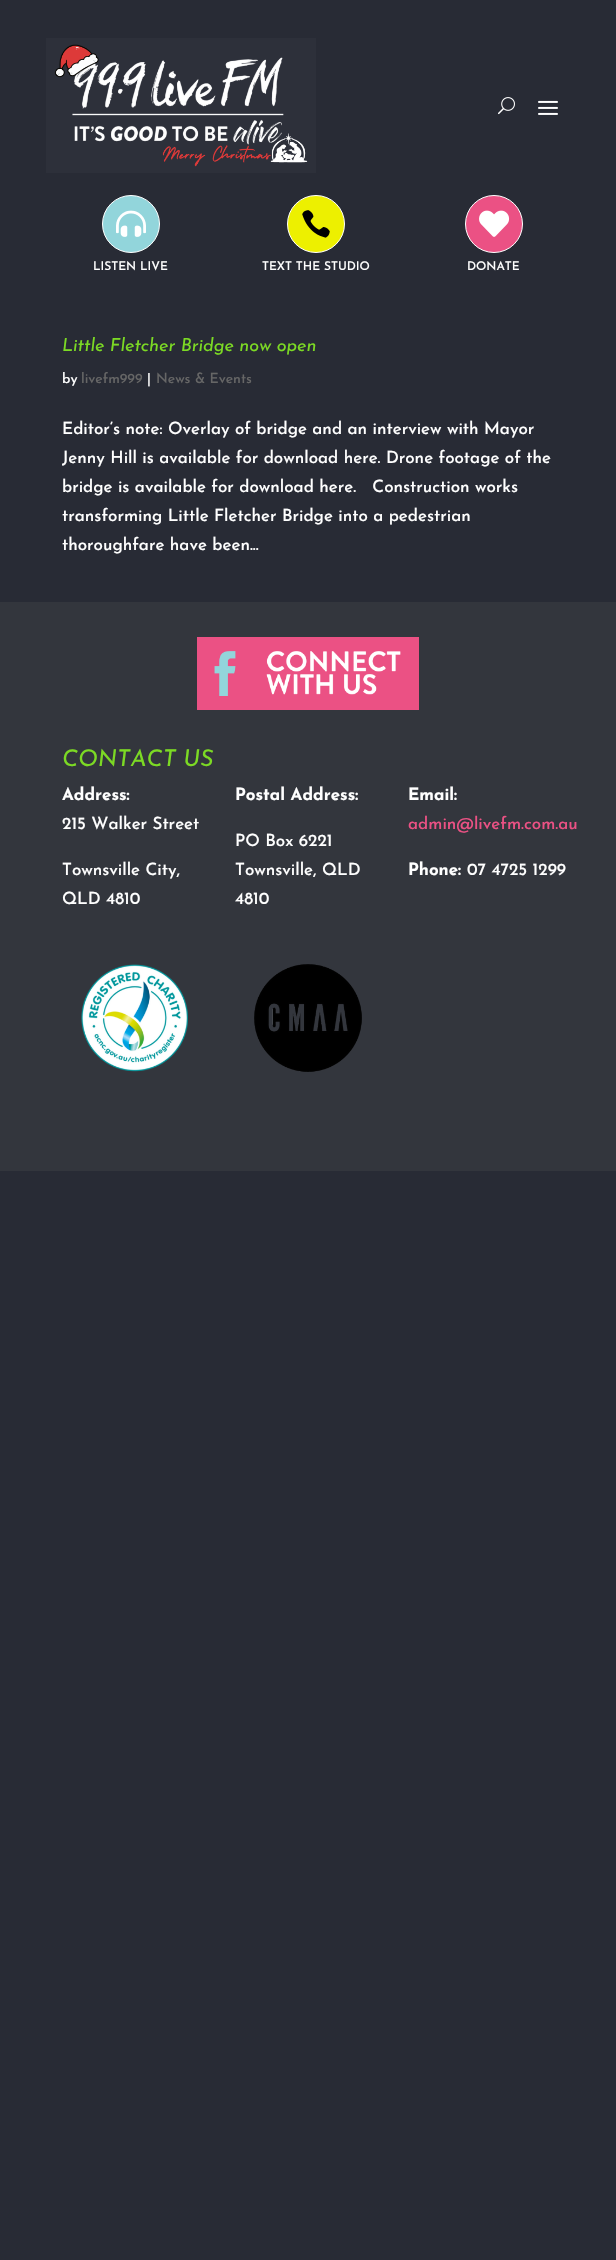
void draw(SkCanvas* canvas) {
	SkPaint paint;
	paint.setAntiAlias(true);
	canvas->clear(0xff282b35);
	canvas->drawImageRect(SkImages::DeferredFromEncodedData(SkData::MakeFromFileName("img1.png")), SkRect::MakeXYWH(46, 38, 270, 135), SkSamplingOptions());
	canvas->drawImageRect(SkImages::DeferredFromEncodedData(SkData::MakeFromFileName("img2.png")), SkRect::MakeXYWH(498, 97, 17, 18), SkSamplingOptions());
	canvas->drawImageRect(SkImages::DeferredFromEncodedData(SkData::MakeFromFileName("img3.png")), SkRect::MakeXYWH(538, 100, 20, 15), SkSamplingOptions());
	paint.setColor(0xff92d5db);
	canvas->drawCircle(131, 224, 28.5, paint);
	paint.setStroke(true);
	paint.setStrokeWidth(1);
	paint.setColor(0xffffffff);
	canvas->drawCircle(131, 224, 28.5, paint);
	canvas->drawImageRect(SkImages::DeferredFromEncodedData(SkData::MakeFromFileName("img4.png")), SkRect::MakeXYWH(116, 210, 30, 27), SkSamplingOptions());
	SkFont f1(fontMgr->matchFamilyStyle("Josefin Sans", SkFontStyle(500, SkFontStyle::kNormal_Width, SkFontStyle::kUpright_Slant)), 12);
	f1.setSubpixel(true);
	paint.setStroke(false);
	canvas->drawString("LISTEN LIVE", 93, 270, f1, paint);
	paint.setColor(0xffedf000);
	canvas->drawCircle(316, 224, 28.5, paint);
	paint.setStroke(true);
	paint.setColor(0xffffffff);
	canvas->drawCircle(316, 224, 28.5, paint);
	canvas->drawImageRect(SkImages::DeferredFromEncodedData(SkData::MakeFromFileName("img5.png")), SkRect::MakeXYWH(302, 210, 28, 28), SkSamplingOptions());
	paint.setStroke(false);
	canvas->drawString("TEXT THE STUDIO", 262, 270, f1, paint);
	paint.setColor(0xffeb5184);
	canvas->drawCircle(494, 224, 28.5, paint);
	paint.setStroke(true);
	paint.setColor(0xffffffff);
	canvas->drawCircle(494, 224, 28.5, paint);
	canvas->drawImageRect(SkImages::DeferredFromEncodedData(SkData::MakeFromFileName("img6.png")), SkRect::MakeXYWH(479, 210, 31, 27), SkSamplingOptions());
	paint.setStroke(false);
	canvas->drawString("DONATE", 467, 270, f1, paint);
	SkFont f2(fontMgr->matchFamilyStyle("Josefin Sans", SkFontStyle::Italic()), 18);
	f2.setSubpixel(true);
	paint.setColor(0xff7cda24);
	canvas->drawString("Little Fletcher Bridge now open", 62, 351, f2, paint);
	SkFont f3(fontMgr->matchFamilyStyle("Josefin Sans", SkFontStyle(500, SkFontStyle::kNormal_Width, SkFontStyle::kUpright_Slant)), 14);
	f3.setSubpixel(true);
	paint.setColor(0xffffffff);
	canvas->drawString("by", 62, 383, f3, paint);
	paint.setColor(0xff666666);
	canvas->drawString("livefm999", 81, 383, f3, paint);
	paint.setColor(0xffffffff);
	canvas->drawString("|", 147, 383, f3, paint);
	paint.setColor(0xff666666);
	canvas->drawString("News & Events", 156, 383, f3, paint);
	SkFont f4(fontMgr->matchFamilyStyle("Josefin Sans", SkFontStyle(500, SkFontStyle::kNormal_Width, SkFontStyle::kUpright_Slant)), 17);
	f4.setSubpixel(true);
	paint.setColor(0xffffffff);
	canvas->drawString("Editor’s note: Overlay of bridge and an interview with Mayor", 62, 434, f4, paint);
	canvas->drawString("Jenny Hill is available for download here. Drone footage of the", 62, 463, f4, paint);
	canvas->drawString("bridge is available for download here.   Construction works", 62, 492, f4, paint);
	canvas->drawString("transforming Little Fletcher Bridge into a pedestrian", 62, 521, f4, paint);
	canvas->drawString("thoroughfare have been...", 62, 550, f4, paint);
	paint.setColor(0xff33363d);
	canvas->drawRect(SkRect::MakeXYWH(0, 602, 616, 569), paint);
	canvas->drawImageRect(SkImages::DeferredFromEncodedData(SkData::MakeFromFileName("img7.png")), SkRect::MakeXYWH(197, 637, 222, 73), SkSamplingOptions());
	SkFont f5(fontMgr->matchFamilyStyle("Josefin Sans", SkFontStyle::Italic()), 23);
	f5.setSubpixel(true);
	paint.setColor(0xff7cda24);
	canvas->drawString("CONTACT US", 62, 766, f5, paint);
	SkFont f6(fontMgr->matchFamilyStyle("Josefin Sans", SkFontStyle::Bold()), 17);
	f6.setSubpixel(true);
	paint.setColor(0xffffffff);
	canvas->drawString("Address:", 62, 800, f6, paint);
	canvas->drawString("215 Walker Street", 62, 829, f4, paint);
	canvas->drawString("Townsville City,", 62, 875, f4, paint);
	canvas->drawString("QLD 4810", 62, 904, f4, paint);
	canvas->drawString("Postal Address:", 235, 800, f6, paint);
	canvas->drawString("PO Box 6221", 235, 846, f4, paint);
	canvas->drawString("Townsville, QLD", 235, 875, f4, paint);
	canvas->drawString("4810", 235, 904, f4, paint);
	canvas->drawString("Email:", 408, 800, f6, paint);
	paint.setColor(0xffeb5184);
	canvas->drawString("admin@livefm.com.au", 408, 829, f4, paint);
	paint.setColor(0xffffffff);
	canvas->drawString("Phone:", 408, 875, f6, paint);
	canvas->drawString("07 4725 1299", 467, 875, f4, paint);
	canvas->drawImageRect(SkImages::DeferredFromEncodedData(SkData::MakeFromFileName("img8.png")), SkRect::MakeXYWH(81, 964, 107, 108), SkSamplingOptions());
	canvas->drawImageRect(SkImages::DeferredFromEncodedData(SkData::MakeFromFileName("img9.png")), SkRect::MakeXYWH(254, 964, 108, 108), SkSamplingOptions());
}
